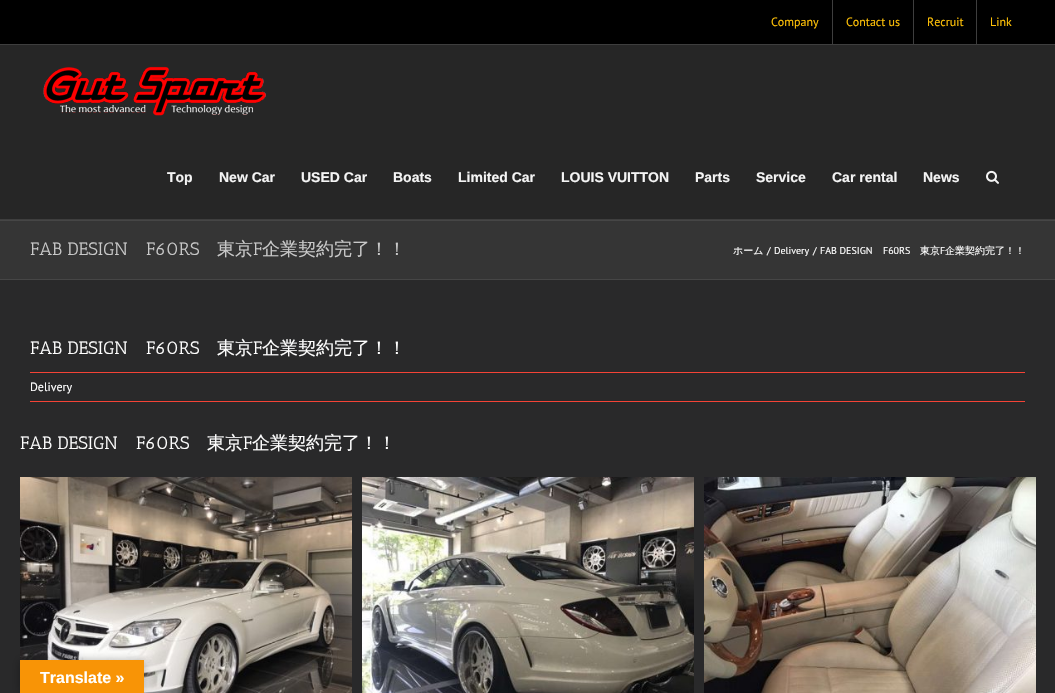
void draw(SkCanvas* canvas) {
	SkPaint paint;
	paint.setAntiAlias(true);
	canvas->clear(0xff29292a);
	paint.setColor(0xff000000);
	canvas->drawRect(SkRect::MakeXYWH(0, 0, 1055, 44), paint);
	paint.setColor(0xff3e3e3e);
	canvas->drawRect(SkRect::MakeXYWH(0, 44, 1055, 1), paint);
	SkFont f1(fontMgr->matchFamilyStyle("PT Sans", SkFontStyle::Normal()), 12);
	f1.setSubpixel(true);
	paint.setColor(0xffffc107);
	canvas->drawString("Company", 771, 26, f1, paint);
	paint.setColor(0xff3e3e3e);
	canvas->drawRect(SkRect::MakeXYWH(832, 0, 1, 44), paint);
	paint.setColor(0xffffc107);
	canvas->drawString("Contact us", 846, 26, f1, paint);
	paint.setColor(0xff3e3e3e);
	canvas->drawRect(SkRect::MakeXYWH(913, 0, 1, 44), paint);
	paint.setColor(0xffffc107);
	canvas->drawString("Recruit", 927, 26, f1, paint);
	paint.setColor(0xff3e3e3e);
	canvas->drawRect(SkRect::MakeXYWH(976, 0, 1, 44), paint);
	paint.setColor(0xffffc107);
	canvas->drawString("Link", 990, 26, f1, paint);
	paint.setColor(0xff262626);
	canvas->drawRect(SkRect::MakeXYWH(0, 45, 1055, 174), paint);
	paint.setColor(0xff3e3e3e);
	canvas->drawRect(SkRect::MakeXYWH(0, 219, 1055, 1), paint);
	canvas->drawImageRect(SkImages::DeferredFromEncodedData(SkData::MakeFromFileName("img1.png")), SkRect::MakeXYWH(43, 66, 223, 50), SkSamplingOptions());
	SkFont f2(fontMgr->matchFamilyStyle("Liberation Sans", SkFontStyle::Bold()), 14);
	f2.setSubpixel(true);
	paint.setColor(0xfff4f4f4);
	canvas->drawString("Top", 167, 182, f2, paint);
	canvas->drawString("New Car", 219, 182, f2, paint);
	canvas->drawString("USED Car", 301, 182, f2, paint);
	canvas->drawString("Boats", 393, 182, f2, paint);
	canvas->drawString("Limited Car", 458, 182, f2, paint);
	canvas->drawString("LOUIS VUITTON", 561, 182, f2, paint);
	canvas->drawString("Parts", 695, 182, f2, paint);
	canvas->drawString("Service", 756, 182, f2, paint);
	canvas->drawString("Car rental", 832, 182, f2, paint);
	canvas->drawString("News", 923, 182, f2, paint);
	canvas->drawImageRect(SkImages::DeferredFromEncodedData(SkData::MakeFromFileName("img2.png")), SkRect::MakeXYWH(986, 170, 13, 14), SkSamplingOptions());
	paint.setColor(0xff353535);
	canvas->drawRect(SkRect::MakeXYWH(0, 221, 1055, 58), paint);
	paint.setColor(0xff464646);
	canvas->drawRect(SkRect::MakeXYWH(0, 220, 1055, 1), paint);
	canvas->drawRect(SkRect::MakeXYWH(0, 279, 1055, 1), paint);
	SkFont f3(fontMgr->matchFamilyStyle("Antic Slab", SkFontStyle::Normal()), 18);
	f3.setSubpixel(true);
	paint.setColor(0xffc9c9c9);
	canvas->drawString("FAB DESIGN", 30, 255, f3, paint);
	canvas->drawString("F60RS", 146, 255, f3, paint);
	SkFont f4(fontMgr->matchFamilyStyle("WenQuanYi Zen Hei", SkFontStyle(500, SkFontStyle::kNormal_Width, SkFontStyle::kUpright_Slant)), 18);
	f4.setSubpixel(true);
	canvas->drawString("東京", 217, 255, f4, paint);
	canvas->drawString("F", 253, 255, f3, paint);
	canvas->drawString("企業契約完了！！", 262, 255, f4, paint);
	SkFont f5(fontMgr->matchFamilyStyle("WenQuanYi Zen Hei", SkFontStyle(500, SkFontStyle::kNormal_Width, SkFontStyle::kUpright_Slant)), 10);
	f5.setSubpixel(true);
	paint.setColor(0xffffffff);
	canvas->drawString("ホーム", 733, 254, f5, paint);
	SkFont f6(fontMgr->matchFamilyStyle("PT Sans", SkFontStyle::Normal()), 10);
	f6.setSubpixel(true);
	canvas->drawString("/", 767, 254, f6, paint);
	canvas->drawString("Delivery", 774, 254, f6, paint);
	canvas->drawString("/", 813, 254, f6, paint);
	canvas->drawString("FAB DESIGN", 820, 254, f6, paint);
	canvas->drawString("F60RS", 883, 254, f6, paint);
	canvas->drawString("東京", 920, 254, f5, paint);
	canvas->drawString("F", 940, 254, f6, paint);
	canvas->drawString("企業契約完了！！", 945, 254, f5, paint);
	canvas->drawString("FAB DESIGN", 30, 354, f3, paint);
	canvas->drawString("F60RS", 146, 354, f3, paint);
	canvas->drawString("東京", 217, 354, f4, paint);
	canvas->drawString("F", 253, 354, f3, paint);
	canvas->drawString("企業契約完了！！", 262, 354, f4, paint);
	paint.setColor(0xfff44336);
	canvas->drawRect(SkRect::MakeXYWH(30, 372, 995, 1), paint);
	canvas->drawRect(SkRect::MakeXYWH(30, 401, 995, 1), paint);
	paint.setColor(0xffffffff);
	canvas->drawString("Delivery", 30, 391, f1, paint);
	canvas->drawString("FAB DESIGN", 20, 449, f3, paint);
	canvas->drawString("F60RS", 136, 449, f3, paint);
	canvas->drawString("東京", 207, 449, f4, paint);
	canvas->drawString("F", 243, 449, f3, paint);
	canvas->drawString("企業契約完了！！", 252, 449, f4, paint);
	canvas->drawImageRect(SkImages::DeferredFromEncodedData(SkData::MakeFromFileName("img3.png")), SkRect::MakeXYWH(20, 477, 332, 216), SkSamplingOptions());
	canvas->drawImageRect(SkImages::DeferredFromEncodedData(SkData::MakeFromFileName("img4.png")), SkRect::MakeXYWH(362, 477, 332, 216), SkSamplingOptions());
	canvas->drawImageRect(SkImages::DeferredFromEncodedData(SkData::MakeFromFileName("img5.png")), SkRect::MakeXYWH(704, 477, 332, 216), SkSamplingOptions());
	paint.setColor(0x4d000000);
	paint.setMaskFilter(SkMaskFilter::MakeBlur(kNormal_SkBlurStyle, 4.5));
	canvas->drawRect(SkRect::MakeXYWH(20, 660, 124, 33), paint);
	paint.setMaskFilter(nullptr);
	paint.setColor(0xfff89406);
	canvas->drawRect(SkRect::MakeXYWH(20, 660, 124, 33), paint);
	SkFont f7(fontMgr->matchFamilyStyle("Liberation Sans", SkFontStyle::Bold()), 16);
	f7.setSubpixel(true);
	paint.setColor(0xffffffff);
	canvas->drawString("Translate »", 40, 683, f7, paint);
}
